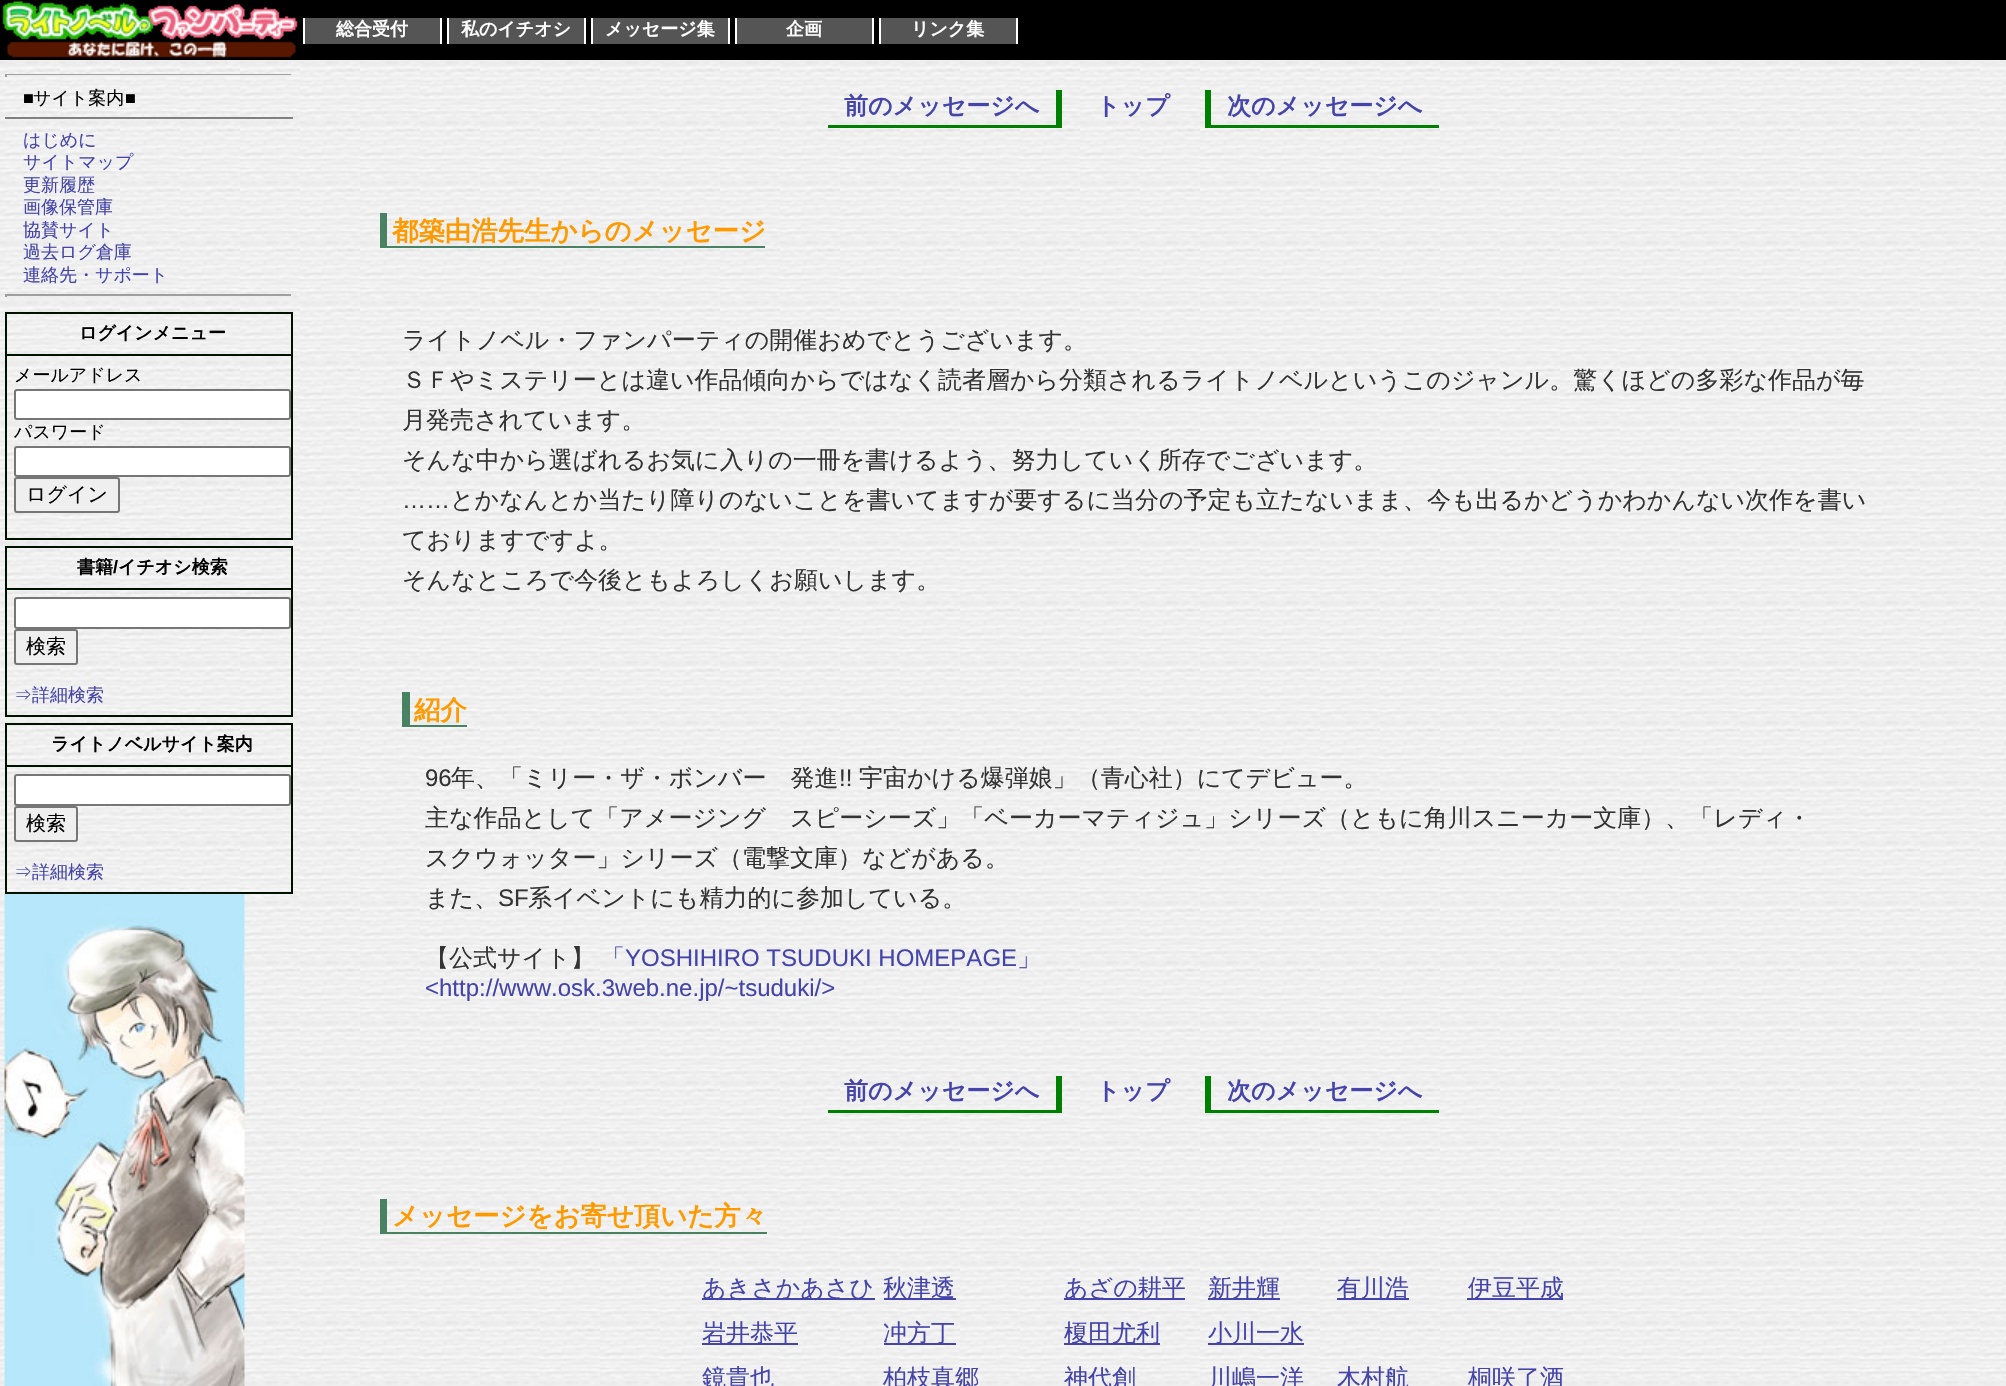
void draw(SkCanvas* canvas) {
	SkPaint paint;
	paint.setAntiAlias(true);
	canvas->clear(0xfff0f0f0);
	canvas->drawImageRect(SkImages::DeferredFromEncodedData(SkData::MakeFromFileName("img1.png")), SkRect::MakeXYWH(0, 60, 2006, 1325), SkSamplingOptions());
	paint.setColor(0xff000000);
	canvas->drawRect(SkRect::MakeXYWH(0, 0, 2006, 60), paint);
	canvas->drawImageRect(SkImages::DeferredFromEncodedData(SkData::MakeFromFileName("img2.png")), SkRect::MakeXYWH(2, 1, 296, 57), SkSamplingOptions());
	paint.setColor(0xffffffff);
	canvas->drawRect(SkRect::MakeXYWH(440, 18, 2, 26), paint);
	canvas->drawRect(SkRect::MakeXYWH(303, 18, 2, 26), paint);
	paint.setColor(0xff555555);
	canvas->drawRect(SkRect::MakeXYWH(305, 18, 135, 26), paint);
	SkFont f1(fontMgr->matchFamilyStyle("WenQuanYi Zen Hei", SkFontStyle::Bold()), 18);
	f1.setSubpixel(true);
	paint.setColor(0xffffffff);
	canvas->drawString("総合受付", 336, 35, f1, paint);
	canvas->drawRect(SkRect::MakeXYWH(584, 18, 2, 26), paint);
	canvas->drawRect(SkRect::MakeXYWH(447, 18, 2, 26), paint);
	paint.setColor(0xff555555);
	canvas->drawRect(SkRect::MakeXYWH(449, 18, 135, 26), paint);
	paint.setColor(0xffffffff);
	canvas->drawString("私のイチオシ", 461, 35, f1, paint);
	canvas->drawRect(SkRect::MakeXYWH(728, 18, 2, 26), paint);
	canvas->drawRect(SkRect::MakeXYWH(591, 18, 2, 26), paint);
	paint.setColor(0xff555555);
	canvas->drawRect(SkRect::MakeXYWH(593, 18, 135, 26), paint);
	paint.setColor(0xffffffff);
	canvas->drawString("メッセージ集", 605, 35, f1, paint);
	canvas->drawRect(SkRect::MakeXYWH(872, 18, 2, 26), paint);
	canvas->drawRect(SkRect::MakeXYWH(735, 18, 2, 26), paint);
	paint.setColor(0xff555555);
	canvas->drawRect(SkRect::MakeXYWH(737, 18, 135, 26), paint);
	paint.setColor(0xffffffff);
	canvas->drawString("企画", 786, 35, f1, paint);
	canvas->drawRect(SkRect::MakeXYWH(1016, 18, 2, 26), paint);
	canvas->drawRect(SkRect::MakeXYWH(879, 18, 2, 26), paint);
	paint.setColor(0xff555555);
	canvas->drawRect(SkRect::MakeXYWH(881, 18, 135, 26), paint);
	paint.setColor(0xffffffff);
	canvas->drawString("リンク集", 911, 35, f1, paint);
	paint.setColor(0xff9f9f9f);
	canvas->drawRect(SkRect::MakeXYWH(5, 74, 288, 1), paint);
	paint.setColor(0xffeeeeee);
	canvas->drawRect(SkRect::MakeXYWH(291, 74, 2, 3), paint);
	canvas->drawRect(SkRect::MakeXYWH(5, 75, 288, 2), paint);
	paint.setColor(0xff9f9f9f);
	canvas->drawRect(SkRect::MakeXYWH(5, 74, 2, 3), paint);
	SkFont f2(fontMgr->matchFamilyStyle("Liberation Sans", SkFontStyle::Normal()), 18);
	f2.setSubpixel(true);
	paint.setColor(0xff000000);
	canvas->drawString("■", 23, 104, f2, paint);
	SkFont f3(fontMgr->matchFamilyStyle("WenQuanYi Zen Hei", SkFontStyle(500, SkFontStyle::kNormal_Width, SkFontStyle::kUpright_Slant)), 18);
	f3.setSubpixel(true);
	canvas->drawString("サイト案内", 33, 104, f3, paint);
	canvas->drawString("■", 125, 104, f2, paint);
	paint.setColor(0xff808080);
	canvas->drawRect(SkRect::MakeXYWH(5, 117, 288, 2), paint);
	paint.setColor(0xff4444aa);
	canvas->drawString("はじめに", 23, 146, f3, paint);
	canvas->drawString("サイトマップ", 23, 168, f3, paint);
	canvas->drawString("更新履歴", 23, 191, f3, paint);
	canvas->drawString("画像保管庫", 23, 213, f3, paint);
	canvas->drawString("協賛サイト", 23, 236, f3, paint);
	canvas->drawString("過去ログ倉庫", 23, 258, f3, paint);
	canvas->drawString("連絡先・サポート", 23, 281, f3, paint);
	paint.setColor(0xff9f9f9f);
	canvas->drawRect(SkRect::MakeXYWH(5, 294, 288, 2), paint);
	paint.setColor(0xffeeeeee);
	canvas->drawRect(SkRect::MakeXYWH(291, 294, 2, 3), paint);
	canvas->drawRect(SkRect::MakeXYWH(5, 296, 288, 2), paint);
	paint.setColor(0xff9f9f9f);
	canvas->drawRect(SkRect::MakeXYWH(5, 294, 2, 3), paint);
	paint.setColor(0xff001100);
	canvas->drawRect(SkRect::MakeXYWH(5, 312, 288, 2), paint);
	canvas->drawRect(SkRect::MakeXYWH(291, 312, 2, 42), paint);
	canvas->drawRect(SkRect::MakeXYWH(5, 312, 2, 42), paint);
	paint.setColor(0xff000000);
	canvas->drawString("ログインメニュー", 79, 339, f1, paint);
	paint.setStroke(true);
	paint.setStrokeWidth(2);
	paint.setColor(0xff001100);
	canvas->drawRect(SkRect::MakeXYWH(6, 355, 286, 184), paint);
	paint.setStroke(false);
	paint.setColor(0xff000000);
	canvas->drawString("メールアドレス", 14, 381, f3, paint);
	paint.setColor(0xffffffff);
	canvas->drawRoundRect(SkRect::MakeXYWH(15, 390, 275, 29), 2, 2, paint);
	paint.setStroke(true);
	paint.setColor(0xff767676);
	canvas->drawRoundRect(SkRect::MakeXYWH(15, 390, 275, 29), 2, 2, paint);
	paint.setStroke(false);
	paint.setColor(0xff000000);
	canvas->drawString("パスワード", 14, 438, f3, paint);
	paint.setColor(0xffffffff);
	canvas->drawRoundRect(SkRect::MakeXYWH(15, 447, 275, 29), 2, 2, paint);
	paint.setStroke(true);
	paint.setColor(0xff767676);
	canvas->drawRoundRect(SkRect::MakeXYWH(15, 447, 275, 29), 2, 2, paint);
	paint.setStroke(false);
	paint.setColor(0xffefefef);
	canvas->drawRoundRect(SkRect::MakeXYWH(15, 478, 104, 34), 2, 2, paint);
	paint.setStroke(true);
	paint.setColor(0xff767676);
	canvas->drawRoundRect(SkRect::MakeXYWH(15, 478, 104, 34), 2, 2, paint);
	SkFont f4(fontMgr->matchFamilyStyle("WenQuanYi Zen Hei", SkFontStyle(500, SkFontStyle::kNormal_Width, SkFontStyle::kUpright_Slant)), 20);
	f4.setSubpixel(true);
	paint.setStroke(false);
	paint.setColor(0xff000000);
	canvas->drawString("ログイン", 26, 501, f4, paint);
	paint.setColor(0xff001100);
	canvas->drawRect(SkRect::MakeXYWH(5, 546, 288, 2), paint);
	canvas->drawRect(SkRect::MakeXYWH(291, 546, 2, 42), paint);
	canvas->drawRect(SkRect::MakeXYWH(5, 546, 2, 42), paint);
	paint.setColor(0xff000000);
	canvas->drawString("書籍", 77, 573, f1, paint);
	SkFont f5(fontMgr->matchFamilyStyle("Liberation Sans", SkFontStyle::Bold()), 18);
	f5.setSubpixel(true);
	canvas->drawString("/", 113, 573, f5, paint);
	canvas->drawString("イチオシ検索", 118, 573, f1, paint);
	paint.setStroke(true);
	paint.setColor(0xff001100);
	canvas->drawRect(SkRect::MakeXYWH(6, 589, 286, 127), paint);
	paint.setStroke(false);
	paint.setColor(0xffffffff);
	canvas->drawRoundRect(SkRect::MakeXYWH(15, 598, 275, 30), 2, 2, paint);
	paint.setStroke(true);
	paint.setColor(0xff767676);
	canvas->drawRoundRect(SkRect::MakeXYWH(15, 598, 275, 30), 2, 2, paint);
	paint.setStroke(false);
	paint.setColor(0xffefefef);
	canvas->drawRoundRect(SkRect::MakeXYWH(15, 630, 62, 34), 2, 2, paint);
	paint.setStroke(true);
	paint.setColor(0xff767676);
	canvas->drawRoundRect(SkRect::MakeXYWH(15, 630, 62, 34), 2, 2, paint);
	paint.setStroke(false);
	paint.setColor(0xff000000);
	canvas->drawString("検索", 26, 653, f4, paint);
	paint.setColor(0xff4444aa);
	canvas->drawString("⇒詳細検索", 14, 701, f3, paint);
	paint.setColor(0xff001100);
	canvas->drawRect(SkRect::MakeXYWH(5, 723, 288, 2), paint);
	canvas->drawRect(SkRect::MakeXYWH(291, 723, 2, 42), paint);
	canvas->drawRect(SkRect::MakeXYWH(5, 723, 2, 42), paint);
	paint.setColor(0xff000000);
	canvas->drawString("ライトノベルサイト案内", 51, 750, f1, paint);
	paint.setStroke(true);
	paint.setColor(0xff001100);
	canvas->drawRect(SkRect::MakeXYWH(6, 766, 286, 127), paint);
	paint.setStroke(false);
	paint.setColor(0xffffffff);
	canvas->drawRoundRect(SkRect::MakeXYWH(15, 775, 275, 30), 2, 2, paint);
	paint.setStroke(true);
	paint.setColor(0xff767676);
	canvas->drawRoundRect(SkRect::MakeXYWH(15, 775, 275, 30), 2, 2, paint);
	paint.setStroke(false);
	paint.setColor(0xffefefef);
	canvas->drawRoundRect(SkRect::MakeXYWH(15, 807, 62, 34), 2, 2, paint);
	paint.setStroke(true);
	paint.setColor(0xff767676);
	canvas->drawRoundRect(SkRect::MakeXYWH(15, 807, 62, 34), 2, 2, paint);
	paint.setStroke(false);
	paint.setColor(0xff000000);
	canvas->drawString("検索", 26, 830, f4, paint);
	paint.setColor(0xff4444aa);
	canvas->drawString("⇒詳細検索", 14, 878, f3, paint);
	canvas->drawImageRect(SkImages::DeferredFromEncodedData(SkData::MakeFromFileName("img3.png")), SkRect::MakeXYWH(4, 894, 241, 492), SkSamplingOptions());
	SkFont f6(fontMgr->matchFamilyStyle("WenQuanYi Zen Hei", SkFontStyle::Bold()), 24);
	f6.setSubpixel(true);
	canvas->drawString("前のメッセージへ", 844, 114, f6, paint);
	paint.setColor(0xff008000);
	canvas->drawRect(SkRect::MakeXYWH(1056, 90, 6, 35), paint);
	paint.setColor(0xff4444aa);
	canvas->drawString("トップ", 1096, 114, f6, paint);
	paint.setColor(0xff008000);
	canvas->drawRect(SkRect::MakeXYWH(1205, 90, 6, 35), paint);
	paint.setColor(0xff4444aa);
	canvas->drawString("次のメッセージへ", 1227, 114, f6, paint);
	paint.setColor(0xff008000);
	canvas->drawRect(SkRect::MakeXYWH(828, 125, 234, 3), paint);
	canvas->drawRect(SkRect::MakeXYWH(1205, 125, 234, 3), paint);
	SkFont f7(fontMgr->matchFamilyStyle("WenQuanYi Zen Hei", SkFontStyle::Bold()), 26.4);
	f7.setSubpixel(true);
	paint.setColor(0xffff9900);
	canvas->drawString("都築由浩先生からのメッセージ", 392, 240, f7, paint);
	paint.setColor(0xff498263);
	canvas->drawRect(SkRect::MakeXYWH(380, 246, 385, 2), paint);
	canvas->drawRect(SkRect::MakeXYWH(380, 213, 7, 35), paint);
	SkFont f8(fontMgr->matchFamilyStyle("WenQuanYi Zen Hei", SkFontStyle(500, SkFontStyle::kNormal_Width, SkFontStyle::kUpright_Slant)), 24);
	f8.setSubpixel(true);
	paint.setColor(0xff333333);
	canvas->drawString("ライトノベル・ファンパーティの開催おめでとうございます。", 402, 348, f8, paint);
	canvas->drawString("ＳＦやミステリーとは違い作品傾向からではなく読者層から分類されるライトノベルというこのジャンル。驚くほどの多彩な作品が毎", 402, 388, f8, paint);
	canvas->drawString("月発売されています。", 402, 428, f8, paint);
	canvas->drawString("そんな中から選ばれるお気に入りの一冊を書けるよう、努力していく所存でございます。", 402, 468, f8, paint);
	SkFont f9(fontMgr->matchFamilyStyle("Liberation Sans", SkFontStyle::Normal()), 24);
	f9.setSubpixel(true);
	canvas->drawString("……", 402, 508, f9, paint);
	canvas->drawString("とかなんとか当たり障りのないことを書いてますが要するに当分の予定も立たないまま、今も出るかどうかわかんない次作を書い", 450, 508, f8, paint);
	canvas->drawString("ておりますですよ。", 402, 548, f8, paint);
	canvas->drawString("そんなところで今後ともよろしくお願いします。", 402, 588, f8, paint);
	paint.setColor(0xffff9900);
	canvas->drawString("紹介", 414, 719, f7, paint);
	paint.setColor(0xff498263);
	canvas->drawRect(SkRect::MakeXYWH(402, 725, 65, 2), paint);
	canvas->drawRect(SkRect::MakeXYWH(402, 692, 8, 34), paint);
	paint.setColor(0xff333333);
	canvas->drawString("96", 425, 786, f9, paint);
	canvas->drawString("年、「ミリー・ザ・ボンバー　発進", 451, 786, f8, paint);
	canvas->drawString("!!", 839, 786, f9, paint);
	canvas->drawString("宇宙かける爆弾娘」（青心社）にてデビュー。", 859, 786, f8, paint);
	canvas->drawString("主な作品として「アメージング　スピーシーズ」「ベーカーマティジュ」シリーズ（ともに角川スニーカー文庫）、「レディ・", 425, 826, f8, paint);
	canvas->drawString("スクウォッター」シリーズ（電撃文庫）などがある。", 425, 866, f8, paint);
	canvas->drawString("また、", 425, 906, f8, paint);
	canvas->drawString("SF", 498, 906, f9, paint);
	canvas->drawString("系イベントにも精力的に参加している。", 528, 906, f8, paint);
	canvas->drawString("【公式サイト】", 425, 966, f8, paint);
	paint.setColor(0xff4444aa);
	canvas->drawString("「", 601, 966, f8, paint);
	canvas->drawString("YOSHIHIRO TSUDUKI HOMEPAGE", 625, 966, f9, paint);
	canvas->drawString("」", 1017, 966, f8, paint);
	canvas->drawString("<http://www.osk.3web.ne.jp/~tsuduki/>", 425, 996, f9, paint);
	canvas->drawString("前のメッセージへ", 844, 1099, f6, paint);
	paint.setColor(0xff008000);
	canvas->drawRect(SkRect::MakeXYWH(1056, 1076, 6, 34), paint);
	paint.setColor(0xff4444aa);
	canvas->drawString("トップ", 1096, 1099, f6, paint);
	paint.setColor(0xff008000);
	canvas->drawRect(SkRect::MakeXYWH(1205, 1076, 6, 34), paint);
	paint.setColor(0xff4444aa);
	canvas->drawString("次のメッセージへ", 1227, 1099, f6, paint);
	paint.setColor(0xff008000);
	canvas->drawRect(SkRect::MakeXYWH(828, 1110, 234, 3), paint);
	canvas->drawRect(SkRect::MakeXYWH(1205, 1110, 234, 3), paint);
	paint.setColor(0xffff9900);
	canvas->drawString("メッセージをお寄せ頂いた方々", 392, 1225, f7, paint);
	paint.setColor(0xff498263);
	canvas->drawRect(SkRect::MakeXYWH(380, 1232, 387, 2), paint);
	canvas->drawRect(SkRect::MakeXYWH(380, 1199, 7, 34), paint);
	paint.setColor(0xff4444aa);
	canvas->drawRect(SkRect::MakeXYWH(702, 1298, 173, 2), paint);
	canvas->drawString("あきさかあさひ", 702, 1296, f8, paint);
	canvas->drawRect(SkRect::MakeXYWH(884, 1298, 72, 2), paint);
	canvas->drawString("秋津透", 883, 1296, f8, paint);
	canvas->drawRect(SkRect::MakeXYWH(1064, 1298, 121, 2), paint);
	canvas->drawString("あざの耕平", 1064, 1296, f8, paint);
	canvas->drawRect(SkRect::MakeXYWH(1208, 1298, 72, 2), paint);
	canvas->drawString("新井輝", 1208, 1296, f8, paint);
	canvas->drawRect(SkRect::MakeXYWH(1337, 1298, 72, 2), paint);
	canvas->drawString("有川浩", 1337, 1296, f8, paint);
	canvas->drawRect(SkRect::MakeXYWH(1467, 1298, 96, 2), paint);
	canvas->drawString("伊豆平成", 1468, 1296, f8, paint);
	canvas->drawRect(SkRect::MakeXYWH(702, 1343, 96, 2), paint);
	canvas->drawString("岩井恭平", 702, 1341, f8, paint);
	canvas->drawRect(SkRect::MakeXYWH(884, 1343, 72, 2), paint);
	canvas->drawString("冲方丁", 883, 1341, f8, paint);
	canvas->drawRect(SkRect::MakeXYWH(1064, 1343, 96, 2), paint);
	canvas->drawString("榎田尤利", 1064, 1341, f8, paint);
	canvas->drawRect(SkRect::MakeXYWH(1208, 1343, 96, 2), paint);
	canvas->drawString("小川一水", 1208, 1341, f8, paint);
	canvas->drawString("鏡貴也", 702, 1386, f8, paint);
	canvas->drawString("柏枝真郷", 883, 1386, f8, paint);
	canvas->drawString("神代創", 1064, 1386, f8, paint);
	canvas->drawString("川嶋一洋", 1208, 1386, f8, paint);
	canvas->drawString("木村航", 1337, 1386, f8, paint);
	canvas->drawString("桐咲了酒", 1468, 1386, f8, paint);
}
